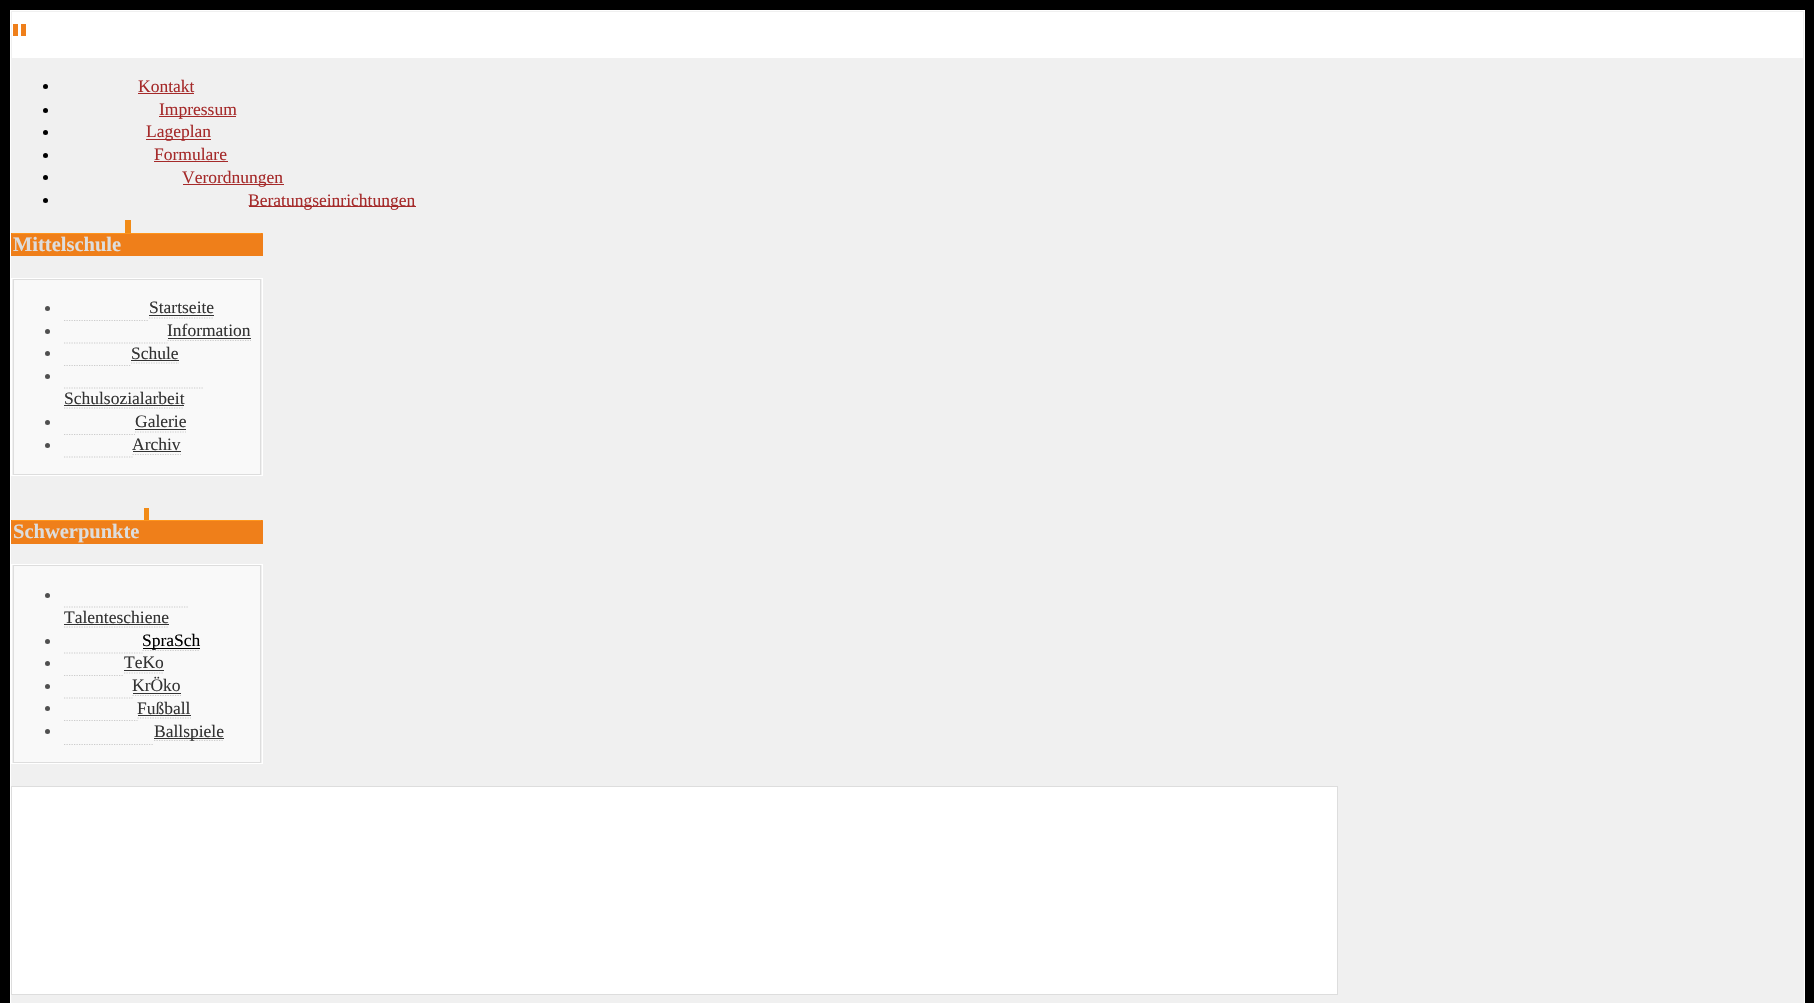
void draw(SkCanvas* canvas) {
	SkPaint paint;
	paint.setAntiAlias(true);
	auto svgPath = [&](const char* data, bool evenOdd = false) {
		SkPath result = *SkParsePath::FromSVGString(data);
		if (evenOdd) result.setFillType(SkPathFillType::kEvenOdd);
		return result;
	};
	canvas->clear(0xff000000);
	paint.setColor(0xfff0f0f0);
	canvas->drawRect(SkRect::MakeXYWH(11, 58, 1793, 945), paint);
	paint.setStroke(true);
	paint.setStrokeWidth(1);
	paint.setColor(0xffffffff);
	canvas->drawRect(SkRect::MakeXYWH(10.5, 10.5, 1794, 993), paint);
	paint.setStroke(false);
	canvas->drawRect(SkRect::MakeXYWH(12, 12, 1791, 46), paint);
	paint.setColor(0xfff0f0f0);
	canvas->drawRect(SkRect::MakeXYWH(11, 11, 1793, 1), paint);
	canvas->drawRect(SkRect::MakeXYWH(1803, 11, 1, 47), paint);
	canvas->drawRect(SkRect::MakeXYWH(11, 11, 1, 47), paint);
	paint.setColor(0xffef7f1a);
	canvas->drawRect(SkRect::MakeXYWH(13, 24, 5, 12), paint);
	canvas->drawRect(SkRect::MakeXYWH(21, 24, 5, 12), paint);
	paint.setColor(0xff000000);
	canvas->drawCircle(45.5, 86.5, 2.5, paint);
	SkFont f1(fontMgr->matchFamilyStyle("Liberation Serif", SkFontStyle::Normal()), 17.5);
	f1.setSubpixel(true);
	paint.setColor(0xffa52a2a);
	canvas->drawString("Kontakt", 138, 92, f1, paint);
	canvas->drawRect(SkRect::MakeXYWH(138, 93, 56, 1), paint);
	paint.setColor(0xff000000);
	canvas->drawCircle(45.5, 110.5, 2.5, paint);
	paint.setColor(0xffa52a2a);
	canvas->drawRect(SkRect::MakeXYWH(159, 116, 77, 1), paint);
	canvas->drawString("Impressum", 159, 115, f1, paint);
	paint.setColor(0xff000000);
	canvas->drawCircle(45.5, 132.5, 2.5, paint);
	paint.setColor(0xffa52a2a);
	canvas->drawRect(SkRect::MakeXYWH(146, 139, 65, 1), paint);
	canvas->drawString("Lageplan", 146, 137, f1, paint);
	paint.setColor(0xff000000);
	canvas->drawCircle(45.5, 155.5, 2.5, paint);
	paint.setColor(0xffa52a2a);
	canvas->drawString("Formulare", 154, 160, f1, paint);
	canvas->drawRect(SkRect::MakeXYWH(154, 161, 74, 1), paint);
	paint.setColor(0xff000000);
	canvas->drawCircle(45.5, 177.5, 2.5, paint);
	paint.setColor(0xffa52a2a);
	canvas->drawRect(SkRect::MakeXYWH(183, 184, 101, 1), paint);
	canvas->drawString("Verordnungen", 182, 183, f1, paint);
	paint.setColor(0xff000000);
	canvas->drawCircle(45.5, 200.5, 2.5, paint);
	paint.setColor(0xffa52a2a);
	canvas->drawRect(SkRect::MakeXYWH(249, 206, 167, 1), paint);
	canvas->drawString("Beratungseinrichtungen", 248, 206, f1, paint);
	paint.setColor(0xffef7f1a);
	canvas->drawRect(SkRect::MakeXYWH(12, 234, 251, 22), paint);
	paint.setColor(0xffff951c);
	canvas->drawRect(SkRect::MakeXYWH(11, 233, 252, 1), paint);
	paint.setColor(0xffef7f1a);
	canvas->drawRect(SkRect::MakeXYWH(261, 233, 1, 1), paint);
	canvas->drawRect(SkRect::MakeXYWH(11, 233, 1, 23), paint);
	paint.setColor(0xfff18b17);
	canvas->drawRect(SkRect::MakeXYWH(125, 220, 6, 13), paint);
	SkFont f2(fontMgr->matchFamilyStyle("Liberation Serif", SkFontStyle::Bold()), 20.5);
	f2.setSubpixel(true);
	paint.setColor(0xffdddddd);
	canvas->drawString("Mittelschule", 13, 251, f2, paint);
	paint.setStroke(true);
	paint.setColor(0xffffffff);
	canvas->drawRect(SkRect::MakeXYWH(11.5, 278.5, 251, 197), paint);
	paint.setStroke(false);
	paint.setColor(0xfff9f9f9);
	canvas->drawRect(SkRect::MakeXYWH(13.5, 279.5, 247, 195), paint);
	paint.setStroke(true);
	paint.setColor(0xffdddddd);
	canvas->drawRect(SkRect::MakeXYWH(13.5, 279.5, 247, 195), paint);
	paint.setStroke(false);
	paint.setColor(0xff505050);
	canvas->drawCircle(47.5, 308.5, 2.5, paint);
	paint.setColor(0xff333333);
	canvas->drawString("Startseite", 149, 313, f1, paint);
	paint.setStroke(true);
	paint.setStrokeWidth(1.2);
	paint.setColor(0xffcccccc);
	paint.setPathEffect(SkDashPathEffect::Make({{1.25f, 1.25f}}, 0));
	canvas->drawPath(svgPath("M64 320.5H149"), paint);
	paint.setPathEffect(nullptr);
	paint.setPathEffect(SkDashPathEffect::Make({{1.25f, 1.25f}}, 0));
	canvas->drawPath(svgPath("M149 318H214"), paint);
	paint.setPathEffect(nullptr);
	paint.setStroke(false);
	paint.setColor(0xff333333);
	canvas->drawRect(SkRect::MakeXYWH(149, 315, 65, 1), paint);
	paint.setColor(0xff505050);
	canvas->drawCircle(47.5, 331.5, 2.5, paint);
	paint.setColor(0xff333333);
	canvas->drawString("Information", 167, 336, f1, paint);
	paint.setStroke(true);
	paint.setColor(0xffcccccc);
	paint.setPathEffect(SkDashPathEffect::Make({{1.25f, 1.25f}}, 0));
	canvas->drawPath(svgPath("M64 343H167.5"), paint);
	paint.setPathEffect(nullptr);
	paint.setPathEffect(SkDashPathEffect::Make({{1.25f, 1.25f}}, 0));
	canvas->drawPath(svgPath("M167.5 340.5H251"), paint);
	paint.setPathEffect(nullptr);
	paint.setStroke(false);
	paint.setColor(0xff333333);
	canvas->drawRect(SkRect::MakeXYWH(168, 338, 83, 1), paint);
	paint.setColor(0xff505050);
	canvas->drawCircle(47.5, 353.5, 2.5, paint);
	paint.setColor(0xff333333);
	canvas->drawString("Schule", 131, 359, f1, paint);
	paint.setStroke(true);
	paint.setColor(0xffcccccc);
	paint.setPathEffect(SkDashPathEffect::Make({{1.25f, 1.25f}}, 0));
	canvas->drawPath(svgPath("M64 365.5H131"), paint);
	paint.setPathEffect(nullptr);
	paint.setPathEffect(SkDashPathEffect::Make({{1.25f, 1.25f}}, 0));
	canvas->drawPath(svgPath("M131 363H179"), paint);
	paint.setPathEffect(nullptr);
	paint.setStroke(false);
	paint.setColor(0xff333333);
	canvas->drawRect(SkRect::MakeXYWH(131, 360, 48, 1), paint);
	paint.setColor(0xff505050);
	canvas->drawCircle(47.5, 376.5, 2.5, paint);
	paint.setColor(0xff333333);
	canvas->drawString("Schulsozialarbeit", 64, 404, f1, paint);
	paint.setStroke(true);
	paint.setColor(0xffcccccc);
	paint.setPathEffect(SkDashPathEffect::Make({{1.25f, 1.25f}}, 0));
	canvas->drawPath(svgPath("M64 388H204"), paint);
	paint.setPathEffect(nullptr);
	paint.setPathEffect(SkDashPathEffect::Make({{1.25f, 1.25f}}, 0));
	canvas->drawPath(svgPath("M64 408H184"), paint);
	paint.setPathEffect(nullptr);
	paint.setStroke(false);
	paint.setColor(0xff333333);
	canvas->drawRect(SkRect::MakeXYWH(64, 405, 120, 1), paint);
	paint.setColor(0xff505050);
	canvas->drawCircle(47.5, 422.5, 2.5, paint);
	paint.setColor(0xff333333);
	canvas->drawString("Galerie", 135, 427, f1, paint);
	paint.setStroke(true);
	paint.setColor(0xffcccccc);
	paint.setPathEffect(SkDashPathEffect::Make({{1.25f, 1.25f}}, 0));
	canvas->drawPath(svgPath("M64 434.5H135"), paint);
	paint.setPathEffect(nullptr);
	paint.setPathEffect(SkDashPathEffect::Make({{1.25f, 1.25f}}, 0));
	canvas->drawPath(svgPath("M135 432H186"), paint);
	paint.setPathEffect(nullptr);
	paint.setStroke(false);
	paint.setColor(0xff333333);
	canvas->drawRect(SkRect::MakeXYWH(135, 429, 51, 1), paint);
	paint.setColor(0xff505050);
	canvas->drawCircle(47.5, 445.5, 2.5, paint);
	paint.setColor(0xff333333);
	canvas->drawString("Archiv", 132, 450, f1, paint);
	paint.setStroke(true);
	paint.setColor(0xffcccccc);
	paint.setPathEffect(SkDashPathEffect::Make({{1.25f, 1.25f}}, 0));
	canvas->drawPath(svgPath("M64 457H132.5"), paint);
	paint.setPathEffect(nullptr);
	paint.setPathEffect(SkDashPathEffect::Make({{1.25f, 1.25f}}, 0));
	canvas->drawPath(svgPath("M132.5 454.5H181"), paint);
	paint.setPathEffect(nullptr);
	paint.setStroke(false);
	paint.setColor(0xff333333);
	canvas->drawRect(SkRect::MakeXYWH(133, 451, 48, 1), paint);
	paint.setColor(0xffef7f1a);
	canvas->drawRect(SkRect::MakeXYWH(12, 521, 251, 23), paint);
	paint.setColor(0xffff951c);
	canvas->drawRect(SkRect::MakeXYWH(11, 520, 252, 1), paint);
	paint.setColor(0xffef7f1a);
	canvas->drawRect(SkRect::MakeXYWH(261, 520, 1, 1), paint);
	canvas->drawRect(SkRect::MakeXYWH(11, 520, 1, 24), paint);
	paint.setColor(0xfff18b17);
	canvas->drawRect(SkRect::MakeXYWH(144, 508, 5, 12), paint);
	paint.setColor(0xffdddddd);
	canvas->drawString("Schwerpunkte", 13, 538, f2, paint);
	paint.setStroke(true);
	paint.setStrokeWidth(1);
	paint.setColor(0xffffffff);
	canvas->drawRect(SkRect::MakeXYWH(11.5, 564.5, 251, 199), paint);
	paint.setStroke(false);
	paint.setColor(0xfff9f9f9);
	canvas->drawRect(SkRect::MakeXYWH(13.5, 565.5, 247, 197), paint);
	paint.setStroke(true);
	paint.setColor(0xffdddddd);
	canvas->drawRect(SkRect::MakeXYWH(13.5, 565.5, 247, 197), paint);
	paint.setStroke(false);
	paint.setColor(0xff505050);
	canvas->drawCircle(47.5, 595.5, 2.5, paint);
	paint.setColor(0xff333333);
	canvas->drawString("Talenteschiene", 64, 623, f1, paint);
	paint.setStroke(true);
	paint.setStrokeWidth(1.2);
	paint.setColor(0xffcccccc);
	paint.setPathEffect(SkDashPathEffect::Make({{1.25f, 1.25f}}, 0));
	canvas->drawPath(svgPath("M64 607H189"), paint);
	paint.setPathEffect(nullptr);
	paint.setPathEffect(SkDashPathEffect::Make({{1.25f, 1.25f}}, 0));
	canvas->drawPath(svgPath("M64 627H169"), paint);
	paint.setPathEffect(nullptr);
	paint.setStroke(false);
	paint.setColor(0xff333333);
	canvas->drawRect(SkRect::MakeXYWH(64, 624, 105, 1), paint);
	paint.setColor(0xff505050);
	canvas->drawCircle(47.5, 641.5, 2.5, paint);
	paint.setStroke(true);
	paint.setColor(0xffcccccc);
	paint.setPathEffect(SkDashPathEffect::Make({{1.25f, 1.25f}}, 0));
	canvas->drawPath(svgPath("M142.5 650.5H200"), paint);
	paint.setPathEffect(nullptr);
	paint.setStroke(false);
	paint.setColor(0xff000000);
	canvas->drawRect(SkRect::MakeXYWH(143, 648, 57, 1), paint);
	canvas->drawString("SpraSch", 142, 646, f1, paint);
	paint.setStroke(true);
	paint.setColor(0xffcccccc);
	paint.setPathEffect(SkDashPathEffect::Make({{1.25f, 1.25f}}, 0));
	canvas->drawPath(svgPath("M64 653H142.5"), paint);
	paint.setPathEffect(nullptr);
	paint.setStroke(false);
	paint.setColor(0xff505050);
	canvas->drawCircle(47.5, 663.5, 2.5, paint);
	paint.setColor(0xff333333);
	canvas->drawString("TeKo", 124, 668, f1, paint);
	paint.setStroke(true);
	paint.setColor(0xffcccccc);
	paint.setPathEffect(SkDashPathEffect::Make({{1.25f, 1.25f}}, 0));
	canvas->drawPath(svgPath("M64 675.5H124"), paint);
	paint.setPathEffect(nullptr);
	paint.setPathEffect(SkDashPathEffect::Make({{1.25f, 1.25f}}, 0));
	canvas->drawPath(svgPath("M124 673H164"), paint);
	paint.setPathEffect(nullptr);
	paint.setStroke(false);
	paint.setColor(0xff333333);
	canvas->drawRect(SkRect::MakeXYWH(124, 670, 40, 1), paint);
	paint.setColor(0xff505050);
	canvas->drawCircle(47.5, 686.5, 2.5, paint);
	paint.setColor(0xff333333);
	canvas->drawString("KrÖko", 132, 691, f1, paint);
	paint.setStroke(true);
	paint.setColor(0xffcccccc);
	paint.setPathEffect(SkDashPathEffect::Make({{1.25f, 1.25f}}, 0));
	canvas->drawPath(svgPath("M64 698H132.5"), paint);
	paint.setPathEffect(nullptr);
	paint.setPathEffect(SkDashPathEffect::Make({{1.25f, 1.25f}}, 0));
	canvas->drawPath(svgPath("M132.5 695.5H181"), paint);
	paint.setPathEffect(nullptr);
	paint.setStroke(false);
	paint.setColor(0xff333333);
	canvas->drawRect(SkRect::MakeXYWH(133, 693, 48, 1), paint);
	paint.setColor(0xff505050);
	canvas->drawCircle(47.5, 708.5, 2.5, paint);
	paint.setColor(0xff333333);
	canvas->drawString("Fußball", 137, 714, f1, paint);
	paint.setStroke(true);
	paint.setColor(0xffcccccc);
	paint.setPathEffect(SkDashPathEffect::Make({{1.25f, 1.25f}}, 0));
	canvas->drawPath(svgPath("M64 720.5H137.5"), paint);
	paint.setPathEffect(nullptr);
	paint.setPathEffect(SkDashPathEffect::Make({{1.25f, 1.25f}}, 0));
	canvas->drawPath(svgPath("M137.5 718H191"), paint);
	paint.setPathEffect(nullptr);
	paint.setStroke(false);
	paint.setColor(0xff333333);
	canvas->drawRect(SkRect::MakeXYWH(138, 715, 53, 1), paint);
	paint.setColor(0xff505050);
	canvas->drawCircle(47.5, 731.5, 2.5, paint);
	paint.setStroke(true);
	paint.setColor(0xffcccccc);
	paint.setPathEffect(SkDashPathEffect::Make({{1.25f, 1.25f}}, 0));
	canvas->drawPath(svgPath("M154 740.5H224"), paint);
	paint.setPathEffect(nullptr);
	paint.setStroke(false);
	paint.setColor(0xff333333);
	canvas->drawRect(SkRect::MakeXYWH(154, 738, 70, 1), paint);
	canvas->drawString("Ballspiele", 154, 737, f1, paint);
	paint.setStroke(true);
	paint.setColor(0xffcccccc);
	paint.setPathEffect(SkDashPathEffect::Make({{1.25f, 1.25f}}, 0));
	canvas->drawPath(svgPath("M64 744.5H154"), paint);
	paint.setPathEffect(nullptr);
	paint.setStroke(false);
	paint.setColor(0xffffffff);
	canvas->drawRect(SkRect::MakeXYWH(11.5, 786.5, 1326, 208), paint);
	paint.setStroke(true);
	paint.setStrokeWidth(1);
	paint.setColor(0xffdddddd);
	canvas->drawRect(SkRect::MakeXYWH(11.5, 786.5, 1326, 208), paint);
}
